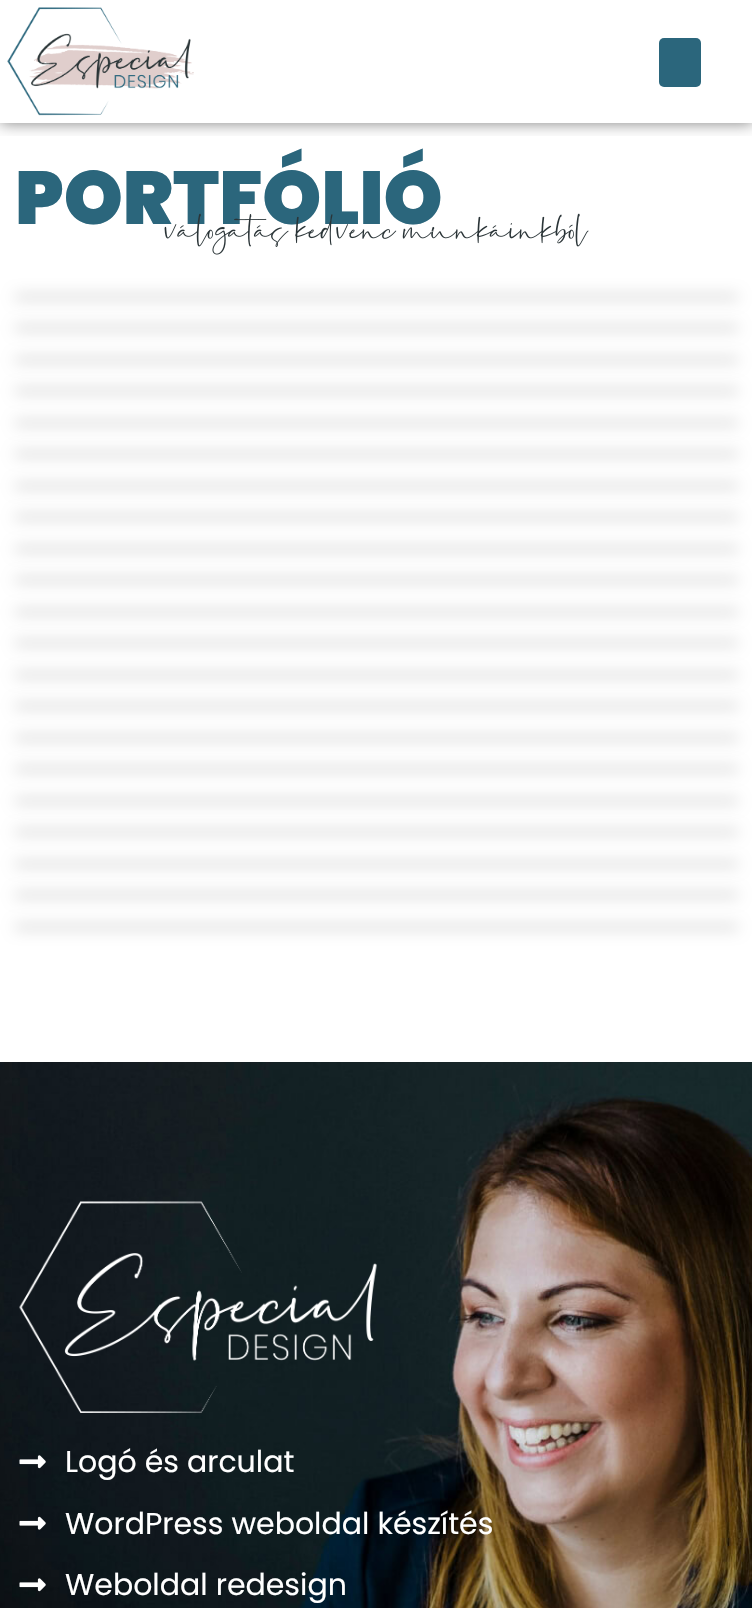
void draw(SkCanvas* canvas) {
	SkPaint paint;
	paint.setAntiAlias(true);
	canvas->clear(0xffffffff);
	canvas->save();
	canvas->clipRect(SkRect::MakeXYWH(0, 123, 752, 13));
	paint.setColor(0x80000000);
	paint.setMaskFilter(SkMaskFilter::MakeBlur(kNormal_SkBlurStyle, 7.5));
	canvas->drawRect(SkRect::MakeXYWH(0, 0, 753, 123), paint);
	paint.setMaskFilter(nullptr);
	canvas->restore();
	canvas->drawImageRect(SkImages::DeferredFromEncodedData(SkData::MakeFromFileName("img1.png")), SkRect::MakeXYWH(7, 7, 187, 109), SkSamplingOptions());
	paint.setColor(0xff2b667c);
	canvas->drawRoundRect(SkRect::MakeXYWH(659, 38, 42, 49), 5, 5, paint);
	SkFont f1(fontMgr->matchFamilyStyle("Poppins", SkFontStyle(900, SkFontStyle::kNormal_Width, SkFontStyle::kUpright_Slant)), 75);
	f1.setSubpixel(true);
	canvas->drawString("PORTFÓLIÓ", 15, 224, f1, paint);
	canvas->drawImageRect(SkImages::DeferredFromEncodedData(SkData::MakeFromFileName("img2.png")), SkRect::MakeXYWH(164, 213, 425, 42), SkSamplingOptions());
	paint.setColor(0x80000000);
	paint.setMaskFilter(SkMaskFilter::MakeBlur(kNormal_SkBlurStyle, 7.5));
	canvas->drawRect(SkRect::MakeXYWH(15, 296, 723, 2), paint);
	paint.setMaskFilter(nullptr);
	paint.setMaskFilter(SkMaskFilter::MakeBlur(kNormal_SkBlurStyle, 7.5));
	canvas->drawRect(SkRect::MakeXYWH(15, 327, 723, 2), paint);
	paint.setMaskFilter(nullptr);
	paint.setMaskFilter(SkMaskFilter::MakeBlur(kNormal_SkBlurStyle, 7.5));
	canvas->drawRect(SkRect::MakeXYWH(15, 359, 723, 2), paint);
	paint.setMaskFilter(nullptr);
	paint.setMaskFilter(SkMaskFilter::MakeBlur(kNormal_SkBlurStyle, 7.5));
	canvas->drawRect(SkRect::MakeXYWH(15, 390, 723, 2), paint);
	paint.setMaskFilter(nullptr);
	paint.setMaskFilter(SkMaskFilter::MakeBlur(kNormal_SkBlurStyle, 7.5));
	canvas->drawRect(SkRect::MakeXYWH(15, 422, 723, 2), paint);
	paint.setMaskFilter(nullptr);
	paint.setMaskFilter(SkMaskFilter::MakeBlur(kNormal_SkBlurStyle, 7.5));
	canvas->drawRect(SkRect::MakeXYWH(15, 453, 723, 2), paint);
	paint.setMaskFilter(nullptr);
	paint.setMaskFilter(SkMaskFilter::MakeBlur(kNormal_SkBlurStyle, 7.5));
	canvas->drawRect(SkRect::MakeXYWH(15, 485, 723, 2), paint);
	paint.setMaskFilter(nullptr);
	paint.setMaskFilter(SkMaskFilter::MakeBlur(kNormal_SkBlurStyle, 7.5));
	canvas->drawRect(SkRect::MakeXYWH(15, 516, 723, 2), paint);
	paint.setMaskFilter(nullptr);
	paint.setMaskFilter(SkMaskFilter::MakeBlur(kNormal_SkBlurStyle, 7.5));
	canvas->drawRect(SkRect::MakeXYWH(15, 548, 723, 2), paint);
	paint.setMaskFilter(nullptr);
	paint.setMaskFilter(SkMaskFilter::MakeBlur(kNormal_SkBlurStyle, 7.5));
	canvas->drawRect(SkRect::MakeXYWH(15, 579, 723, 2), paint);
	paint.setMaskFilter(nullptr);
	paint.setMaskFilter(SkMaskFilter::MakeBlur(kNormal_SkBlurStyle, 7.5));
	canvas->drawRect(SkRect::MakeXYWH(15, 611, 723, 2), paint);
	paint.setMaskFilter(nullptr);
	paint.setMaskFilter(SkMaskFilter::MakeBlur(kNormal_SkBlurStyle, 7.5));
	canvas->drawRect(SkRect::MakeXYWH(15, 642, 723, 2), paint);
	paint.setMaskFilter(nullptr);
	paint.setMaskFilter(SkMaskFilter::MakeBlur(kNormal_SkBlurStyle, 7.5));
	canvas->drawRect(SkRect::MakeXYWH(15, 674, 723, 2), paint);
	paint.setMaskFilter(nullptr);
	paint.setMaskFilter(SkMaskFilter::MakeBlur(kNormal_SkBlurStyle, 7.5));
	canvas->drawRect(SkRect::MakeXYWH(15, 705, 723, 2), paint);
	paint.setMaskFilter(nullptr);
	paint.setMaskFilter(SkMaskFilter::MakeBlur(kNormal_SkBlurStyle, 7.5));
	canvas->drawRect(SkRect::MakeXYWH(15, 737, 723, 2), paint);
	paint.setMaskFilter(nullptr);
	paint.setMaskFilter(SkMaskFilter::MakeBlur(kNormal_SkBlurStyle, 7.5));
	canvas->drawRect(SkRect::MakeXYWH(15, 768, 723, 2), paint);
	paint.setMaskFilter(nullptr);
	paint.setMaskFilter(SkMaskFilter::MakeBlur(kNormal_SkBlurStyle, 7.5));
	canvas->drawRect(SkRect::MakeXYWH(15, 800, 723, 2), paint);
	paint.setMaskFilter(nullptr);
	paint.setMaskFilter(SkMaskFilter::MakeBlur(kNormal_SkBlurStyle, 7.5));
	canvas->drawRect(SkRect::MakeXYWH(15, 831, 723, 2), paint);
	paint.setMaskFilter(nullptr);
	paint.setMaskFilter(SkMaskFilter::MakeBlur(kNormal_SkBlurStyle, 7.5));
	canvas->drawRect(SkRect::MakeXYWH(15, 863, 723, 2), paint);
	paint.setMaskFilter(nullptr);
	paint.setMaskFilter(SkMaskFilter::MakeBlur(kNormal_SkBlurStyle, 7.5));
	canvas->drawRect(SkRect::MakeXYWH(15, 894, 723, 2), paint);
	paint.setMaskFilter(nullptr);
	paint.setMaskFilter(SkMaskFilter::MakeBlur(kNormal_SkBlurStyle, 7.5));
	canvas->drawRect(SkRect::MakeXYWH(15, 926, 723, 2), paint);
	paint.setMaskFilter(nullptr);
	canvas->drawImageRect(SkImages::DeferredFromEncodedData(SkData::MakeFromFileName("img3.png")), SkRect::MakeXYWH(0, 1062, 752, 546), SkSamplingOptions());
	canvas->drawImageRect(SkImages::DeferredFromEncodedData(SkData::MakeFromFileName("img4.png")), SkRect::MakeXYWH(19, 1201, 358, 212), SkSamplingOptions());
	canvas->drawImageRect(SkImages::DeferredFromEncodedData(SkData::MakeFromFileName("img5.png")), SkRect::MakeXYWH(19, 1455, 27, 14), SkSamplingOptions());
	SkFont f2(fontMgr->matchFamilyStyle("Poppins", SkFontStyle::Normal()), 30);
	f2.setSubpixel(true);
	paint.setColor(0xffffffff);
	canvas->drawString("Logó és arculat", 65, 1472, f2, paint);
	canvas->drawImageRect(SkImages::DeferredFromEncodedData(SkData::MakeFromFileName("img6.png")), SkRect::MakeXYWH(19, 1516, 27, 14), SkSamplingOptions());
	canvas->drawString("WordPress weboldal készítés", 65, 1534, f2, paint);
	canvas->drawImageRect(SkImages::DeferredFromEncodedData(SkData::MakeFromFileName("img7.png")), SkRect::MakeXYWH(19, 1578, 27, 14), SkSamplingOptions());
	canvas->drawString("Weboldal redesign", 65, 1595, f2, paint);
}
